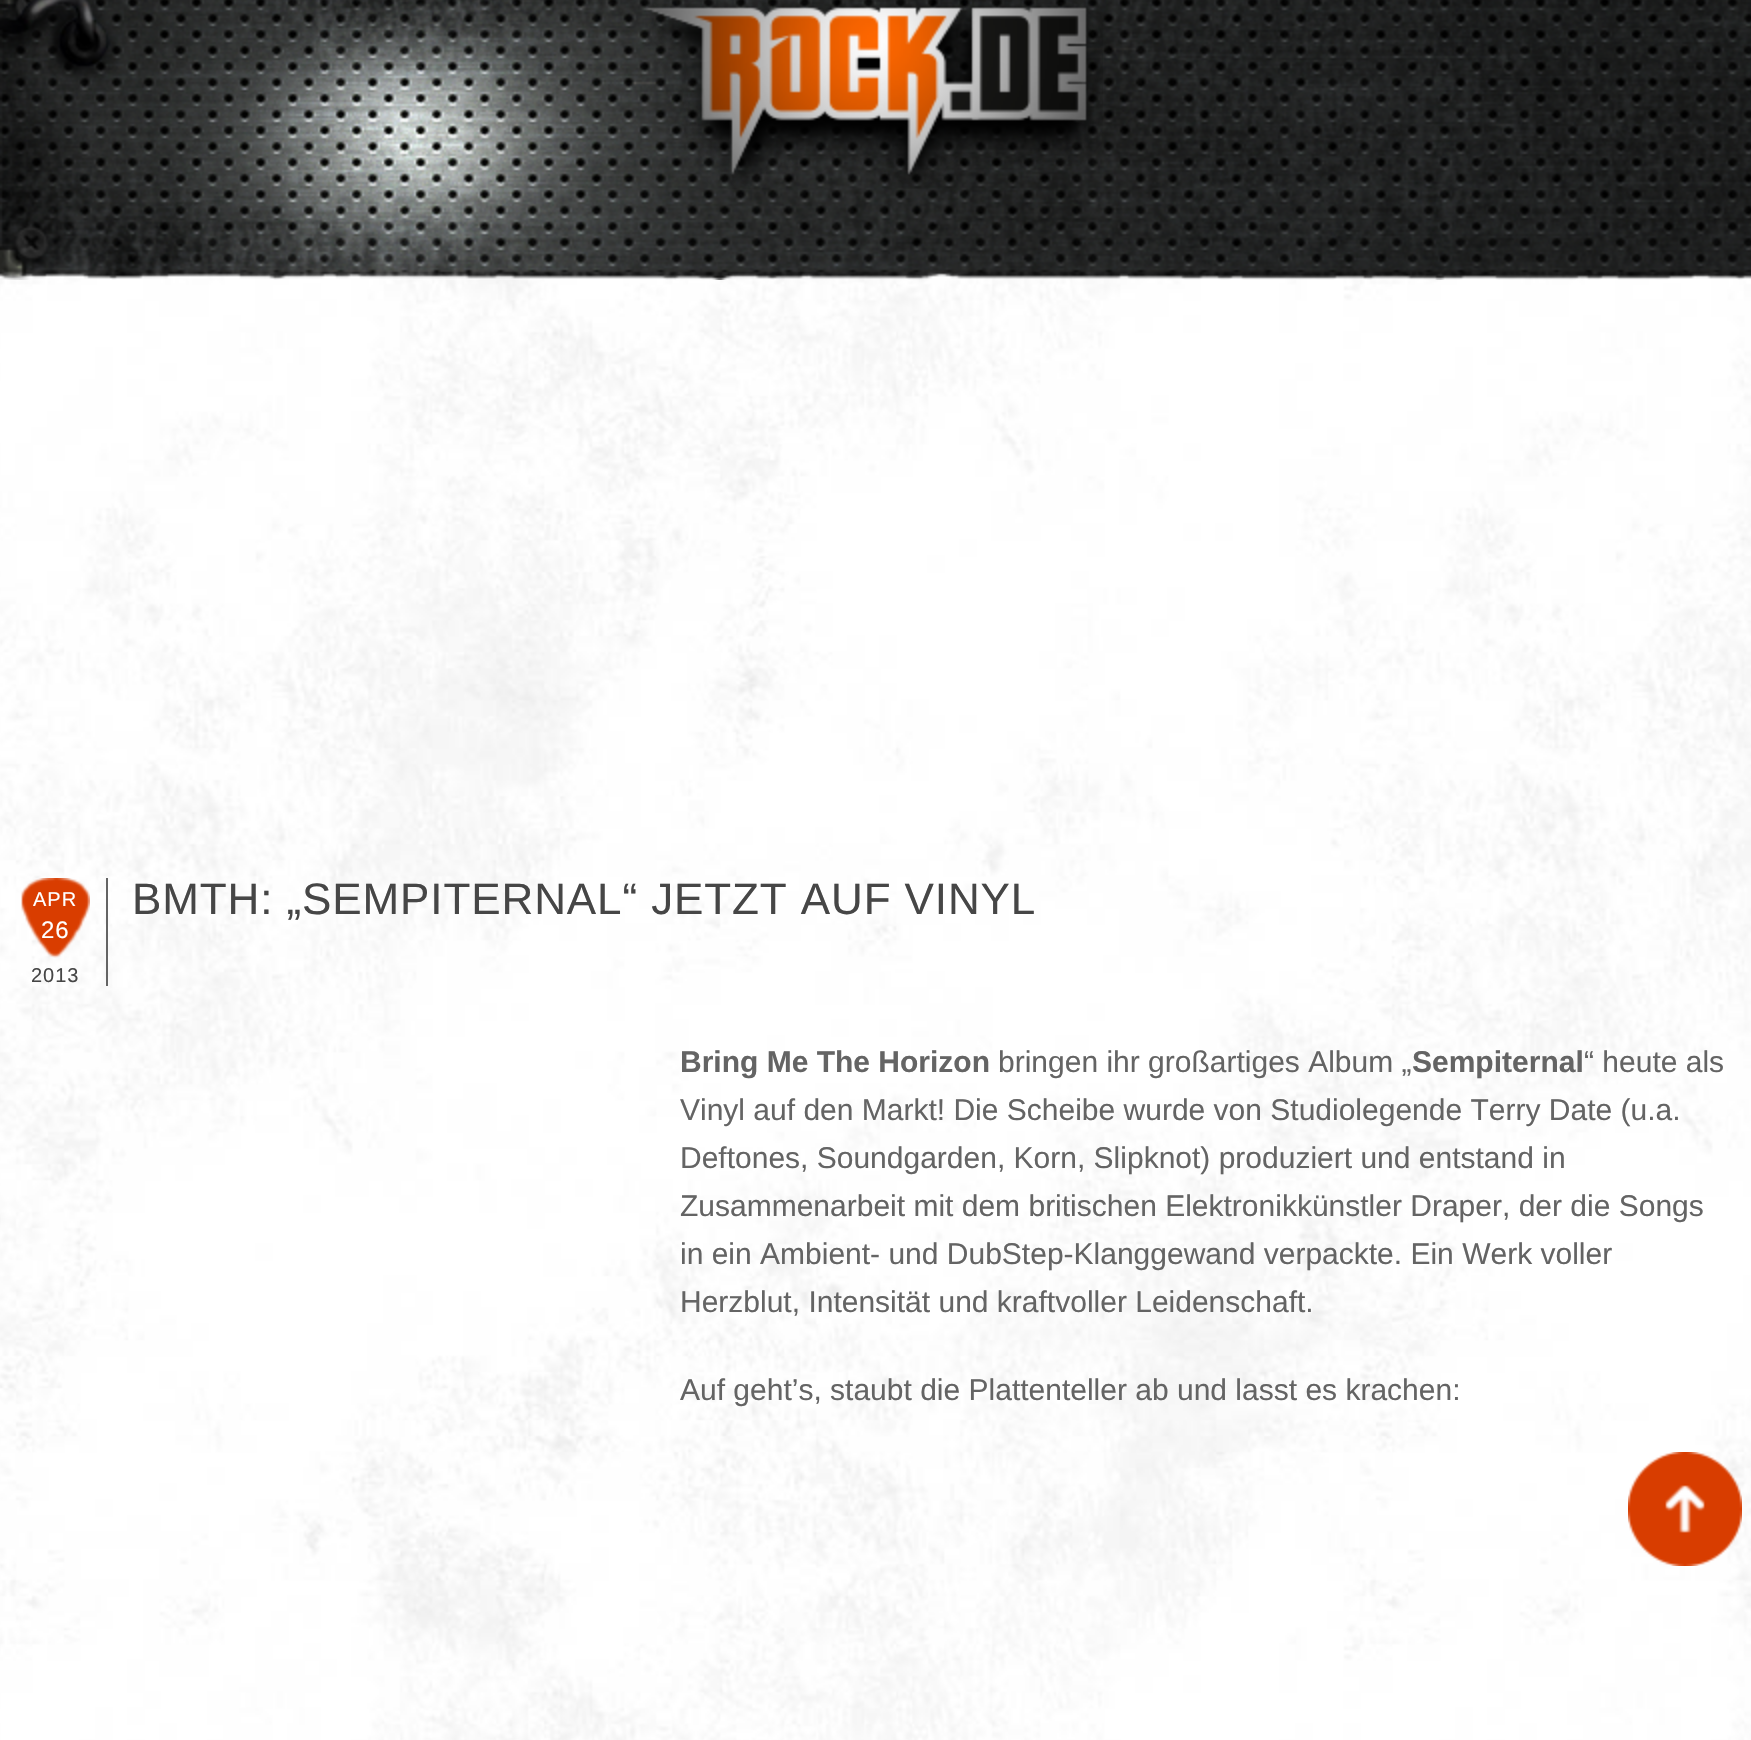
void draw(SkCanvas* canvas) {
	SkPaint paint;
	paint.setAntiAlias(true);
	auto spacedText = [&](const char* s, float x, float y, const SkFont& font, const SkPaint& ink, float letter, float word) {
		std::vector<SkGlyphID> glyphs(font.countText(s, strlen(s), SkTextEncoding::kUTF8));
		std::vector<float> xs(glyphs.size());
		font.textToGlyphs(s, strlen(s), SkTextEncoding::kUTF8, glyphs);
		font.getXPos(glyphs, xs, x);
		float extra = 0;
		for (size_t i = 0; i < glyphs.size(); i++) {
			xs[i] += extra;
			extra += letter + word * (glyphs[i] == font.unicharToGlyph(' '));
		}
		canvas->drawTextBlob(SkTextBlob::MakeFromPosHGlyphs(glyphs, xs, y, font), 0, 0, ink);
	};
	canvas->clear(0xffffffff);
	canvas->drawImageRect(SkImages::DeferredFromEncodedData(SkData::MakeFromFileName("img1.png")), SkRect::MakeXYWH(0, 0, 1751, 1740), SkSamplingOptions());
	canvas->drawImageRect(SkImages::DeferredFromEncodedData(SkData::MakeFromFileName("img2.png")), SkRect::MakeXYWH(645, 0, 458, 189), SkSamplingOptions());
	paint.setColor(0xff646464);
	canvas->drawRect(SkRect::MakeXYWH(106, 878, 2, 108), paint);
	canvas->drawImageRect(SkImages::DeferredFromEncodedData(SkData::MakeFromFileName("img3.png")), SkRect::MakeXYWH(21, 878, 69, 80), SkSamplingOptions());
	SkFont f1(fontMgr->matchFamilyStyle("Liberation Sans", SkFontStyle::Normal()), 20);
	f1.setSubpixel(true);
	paint.setColor(0xffffffff);
	spacedText("APR", 33, 906, f1, paint, 1, 0);
	SkFont f2(fontMgr->matchFamilyStyle("Liberation Sans", SkFontStyle::Normal()), 24);
	f2.setSubpixel(true);
	spacedText("26", 41, 938, f2, paint, 1, 0);
	paint.setColor(0xff464646);
	spacedText("2013", 31, 982, f1, paint, 1, 0);
	SkFont f3(fontMgr->matchFamilyStyle("Liberation Sans", SkFontStyle::Normal()), 44);
	f3.setSubpixel(true);
	spacedText("BMTH: „SEMPITERNAL“ JETZT AUF VINYL", 132, 914, f3, paint, 0.9, 0);
	SkFont f4(fontMgr->matchFamilyStyle("Liberation Sans", SkFontStyle::Bold()), 30);
	f4.setSubpixel(true);
	paint.setColor(0xff646464);
	canvas->drawString("Bring Me The Horizon", 680, 1072, f4, paint);
	SkFont f5(fontMgr->matchFamilyStyle("Liberation Sans", SkFontStyle::Normal()), 30);
	f5.setSubpixel(true);
	canvas->drawString("bringen ihr großartiges Album „", 998, 1072, f5, paint);
	canvas->drawString("Sempiternal", 1412, 1072, f4, paint);
	canvas->drawString("“ heute als", 1584, 1072, f5, paint);
	canvas->drawString("Vinyl auf den Markt! Die Scheibe wurde von Studiolegende Terry Date (u.a.", 680, 1120, f5, paint);
	canvas->drawString("Deftones, Soundgarden, Korn, Slipknot) produziert und entstand in", 680, 1168, f5, paint);
	canvas->drawString("Zusammenarbeit mit dem britischen Elektronikkünstler Draper, der die Songs", 680, 1216, f5, paint);
	canvas->drawString("in ein Ambient- und DubStep-Klanggewand verpackte. Ein Werk voller", 680, 1264, f5, paint);
	canvas->drawString("Herzblut, Intensität und kraftvoller Leidenschaft.", 680, 1312, f5, paint);
	canvas->drawString("Auf geht’s, staubt die Plattenteller ab und lasst es krachen:", 680, 1400, f5, paint);
	canvas->drawImageRect(SkImages::DeferredFromEncodedData(SkData::MakeFromFileName("img4.png")), SkRect::MakeXYWH(1628, 1452, 114, 114), SkSamplingOptions());
}
